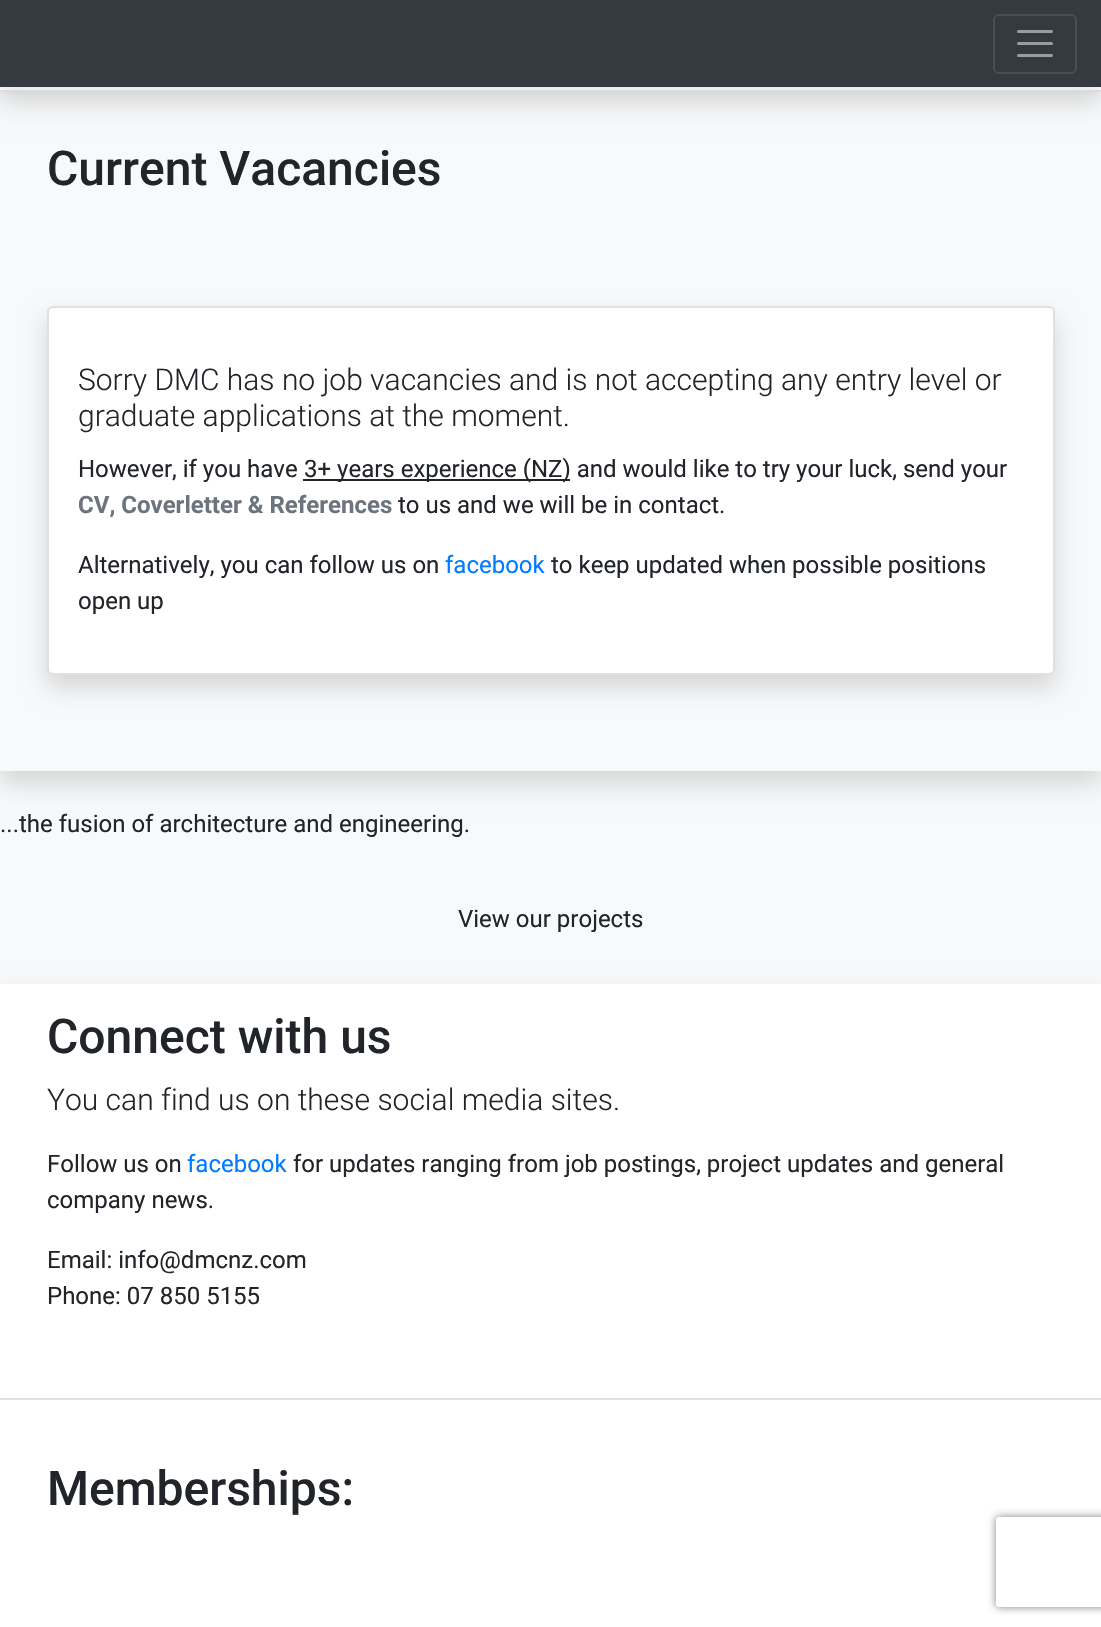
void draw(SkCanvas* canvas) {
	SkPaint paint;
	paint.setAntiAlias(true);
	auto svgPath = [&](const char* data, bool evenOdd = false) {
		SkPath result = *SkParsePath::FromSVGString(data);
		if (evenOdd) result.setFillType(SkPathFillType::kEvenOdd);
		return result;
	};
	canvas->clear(0xfff8f9fa);
	paint.setColor(0x26000000);
	paint.setMaskFilter(SkMaskFilter::MakeBlur(kNormal_SkBlurStyle, 12));
	canvas->drawRect(SkRect::MakeXYWH(0, -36, 1101, 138), paint);
	paint.setMaskFilter(nullptr);
	paint.setColor(0xffffffff);
	canvas->drawRect(SkRect::MakeXYWH(0, 87, 1101, 3), paint);
	canvas->save();
	canvas->clipPath(svgPath("M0 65H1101V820H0ZM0 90H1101V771H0Z", true), true);
	paint.setColor(0x26000000);
	paint.setMaskFilter(SkMaskFilter::MakeBlur(kNormal_SkBlurStyle, 12));
	canvas->drawRect(SkRect::MakeXYWH(0, 102, 1101, 681), paint);
	paint.setMaskFilter(nullptr);
	canvas->restore();
	paint.setColor(0xffdee2e6);
	canvas->drawRect(SkRect::MakeXYWH(0, 90, 1101, 2), paint);
	paint.setColor(0x12000000);
	paint.setMaskFilter(SkMaskFilter::MakeBlur(kNormal_SkBlurStyle, 3));
	canvas->drawRect(SkRect::MakeXYWH(0, 3, 1101, 87), paint);
	paint.setMaskFilter(nullptr);
	paint.setColor(0xff343a40);
	canvas->drawRect(SkRect::MakeXYWH(0, 0, 1101, 87), paint);
	paint.setStroke(true);
	paint.setStrokeWidth(2);
	paint.setColor(0xff484e53);
	canvas->drawRoundRect(SkRect::MakeXYWH(994, 15, 82, 58), 5, 5, paint);
	paint.setStrokeWidth(3);
	paint.setStrokeCap(SkPaint::kRound_Cap);
	paint.setColor(0xff9a9da0);
	canvas->drawPath(svgPath("M1018.5 31.5H1051.5M1018.5 43.5H1051.5M1018.5 55.5H1051.5"), paint);
	SkFont f1(fontMgr->matchFamilyStyle("Roboto", SkFontStyle(500, SkFontStyle::kNormal_Width, SkFontStyle::kUpright_Slant)), 48);
	f1.setSubpixel(true);
	paint.setStroke(false);
	paint.setColor(0xff212529);
	canvas->drawString("Current Vacancies", 47, 185, f1, paint);
	paint.setColor(0x26000000);
	paint.setMaskFilter(SkMaskFilter::MakeBlur(kNormal_SkBlurStyle, 12));
	canvas->drawRoundRect(SkRect::MakeXYWH(47, 318, 1008, 369), 6, 6, paint);
	paint.setMaskFilter(nullptr);
	paint.setColor(0xffffffff);
	canvas->drawRoundRect(SkRect::MakeXYWH(47, 306, 1008, 369), 6, 6, paint);
	paint.setStroke(true);
	paint.setStrokeWidth(2);
	paint.setStrokeCap(SkPaint::kButt_Cap);
	paint.setColor(0x1f000000);
	canvas->drawRoundRect(SkRect::MakeXYWH(48, 307, 1006, 367), 5, 5, paint);
	SkFont f2(fontMgr->matchFamilyStyle("Roboto", SkFontStyle(300, SkFontStyle::kNormal_Width, SkFontStyle::kUpright_Slant)), 30);
	f2.setSubpixel(true);
	paint.setStroke(false);
	paint.setColor(0xff212529);
	canvas->drawString("Sorry DMC has no job vacancies and is not accepting any entry level or", 78, 390, f2, paint);
	canvas->drawString("graduate applications at the moment.", 78, 426, f2, paint);
	SkFont f3(fontMgr->matchFamilyStyle("Roboto", SkFontStyle::Normal()), 24);
	f3.setSubpixel(true);
	canvas->drawString("However, if you have", 78, 477, f3, paint);
	canvas->drawRect(SkRect::MakeXYWH(303, 479, 267, 2), paint);
	canvas->drawString("3+ years experience (NZ) and would like to try your luck, send your", 304, 477, f3, paint);
	SkFont f4(fontMgr->matchFamilyStyle("Roboto", SkFontStyle::Bold()), 24);
	f4.setSubpixel(true);
	paint.setColor(0xff6c757d);
	canvas->drawString("CV, Coverletter & References", 78, 513, f4, paint);
	paint.setColor(0xff212529);
	canvas->drawString("to us and we will be in contact.", 398, 513, f3, paint);
	canvas->drawString("Alternatively, you can follow us on", 78, 573, f3, paint);
	paint.setColor(0xff007bff);
	canvas->drawString("facebook", 445, 573, f3, paint);
	paint.setColor(0xff212529);
	canvas->drawString("to keep updated when possible positions", 551, 573, f3, paint);
	canvas->drawString("open up", 78, 609, f3, paint);
	canvas->drawString("...the fusion of architecture and engineering.", 0, 832, f3, paint);
	canvas->drawString("View our projects", 458, 927, f3, paint);
	paint.setColor(0x26000000);
	paint.setMaskFilter(SkMaskFilter::MakeBlur(kNormal_SkBlurStyle, 12));
	canvas->drawRect(SkRect::MakeXYWH(0, 996, 1101, 416), paint);
	paint.setMaskFilter(nullptr);
	paint.setColor(0xffffffff);
	canvas->drawRect(SkRect::MakeXYWH(0, 984, 1101, 414), paint);
	paint.setColor(0xffdee2e6);
	canvas->drawRect(SkRect::MakeXYWH(0, 1398, 1101, 2), paint);
	paint.setColor(0xff212529);
	canvas->drawString("Connect with us", 47, 1053, f1, paint);
	canvas->drawString("You can find us on these social media sites.", 47, 1110, f2, paint);
	canvas->drawString("Follow us on", 47, 1172, f3, paint);
	paint.setColor(0xff007bff);
	canvas->drawString("facebook", 187, 1172, f3, paint);
	paint.setColor(0xff212529);
	canvas->drawString("for updates ranging from job postings, project updates and general", 293, 1172, f3, paint);
	canvas->drawString("company news.", 47, 1208, f3, paint);
	canvas->drawString("Email: info@dmcnz.com", 47, 1268, f3, paint);
	canvas->drawString("Phone: 07 850 5155", 47, 1304, f3, paint);
	paint.setColor(0xffffffff);
	canvas->drawRect(SkRect::MakeXYWH(0, 1400, 1101, 227), paint);
	paint.setColor(0xff212529);
	canvas->drawString("Memberships:", 47, 1505, f1, paint);
	canvas->save();
	canvas->clipPath(svgPath("M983 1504H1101V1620H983ZM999 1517H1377C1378.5 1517 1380 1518.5 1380 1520V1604C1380 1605.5 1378.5 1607 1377 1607H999C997.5 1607 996 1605.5 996 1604V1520C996 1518.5 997.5 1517 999 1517Z", true), true);
	paint.setColor(0xff808080);
	paint.setMaskFilter(SkMaskFilter::MakeBlur(kNormal_SkBlurStyle, 4));
	canvas->drawRoundRect(SkRect::MakeXYWH(996, 1517, 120, 90), 3, 3, paint);
	paint.setMaskFilter(nullptr);
	canvas->restore();
}
